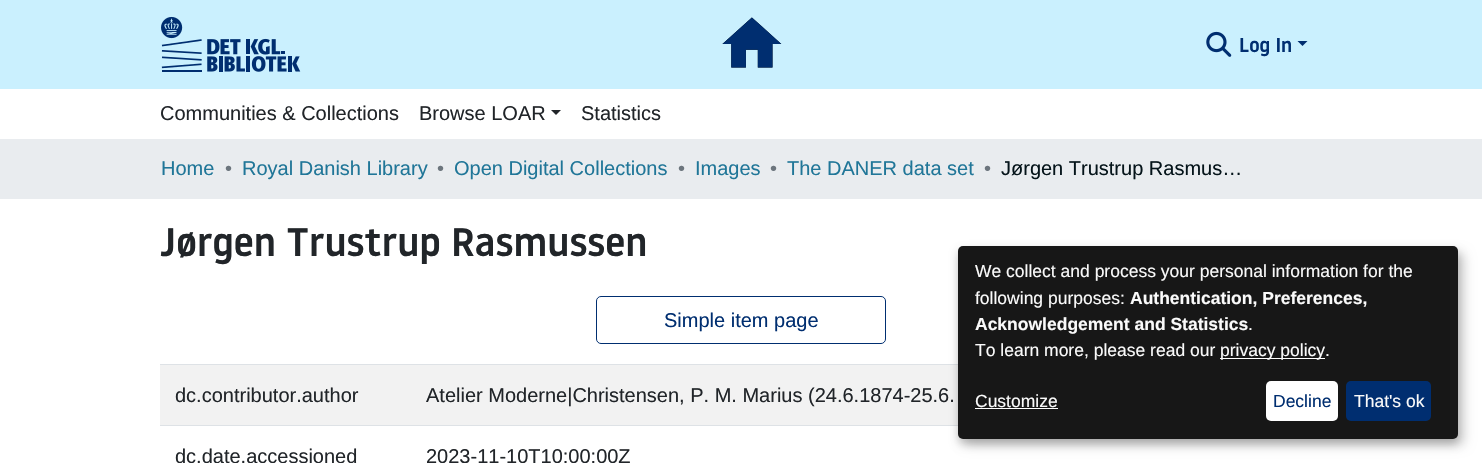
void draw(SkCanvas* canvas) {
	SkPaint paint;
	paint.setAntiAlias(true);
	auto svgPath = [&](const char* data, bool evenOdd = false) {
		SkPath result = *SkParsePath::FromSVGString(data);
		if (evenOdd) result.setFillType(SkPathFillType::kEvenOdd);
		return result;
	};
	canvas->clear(0xffffffff);
	paint.setColor(0xffcaf0fe);
	canvas->drawRect(SkRect::MakeXYWH(0, 0, 1482, 89), paint);
	canvas->drawImageRect(SkImages::DeferredFromEncodedData(SkData::MakeFromFileName("img1.png")), SkRect::MakeXYWH(161, 16, 140, 56), SkSamplingOptions());
	canvas->drawImageRect(SkImages::DeferredFromEncodedData(SkData::MakeFromFileName("img2.png")), SkRect::MakeXYWH(722, 17, 60, 51), SkSamplingOptions());
	canvas->drawImageRect(SkImages::DeferredFromEncodedData(SkData::MakeFromFileName("img3.png")), SkRect::MakeXYWH(1206, 31, 26, 26), SkSamplingOptions());
	SkFont f1(fontMgr->matchFamilyStyle("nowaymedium", SkFontStyle(500, SkFontStyle::kNormal_Width, SkFontStyle::kUpright_Slant)), 20);
	f1.setSubpixel(true);
	paint.setColor(0xff002e70);
	canvas->drawString("Log In", 1239, 52, f1, paint);
	canvas->drawPath(svgPath("M1297.5 41H1307.5L1302.5 46Z"), paint);
	SkFont f2(fontMgr->matchFamilyStyle("Liberation Sans", SkFontStyle::Normal()), 20);
	f2.setSubpixel(true);
	paint.setColor(0xff212529);
	canvas->drawString("Communities & Collections", 160, 120, f2, paint);
	canvas->drawString("Browse LOAR", 419, 120, f2, paint);
	canvas->drawPath(svgPath("M551 110H561L556 115Z"), paint);
	canvas->drawString("Statistics", 581, 120, f2, paint);
	paint.setColor(0xffe9ecef);
	canvas->drawRect(SkRect::MakeXYWH(0, 139, 1482, 60), paint);
	paint.setColor(0xff207698);
	canvas->drawString("Home", 161, 175, f2, paint);
	paint.setColor(0xff6c757d);
	canvas->drawString("•", 225, 175, f2, paint);
	paint.setColor(0xff207698);
	canvas->drawString("Royal Danish Library", 242, 175, f2, paint);
	paint.setColor(0xff6c757d);
	canvas->drawString("•", 437, 175, f2, paint);
	paint.setColor(0xff207698);
	canvas->drawString("Open Digital Collections", 454, 175, f2, paint);
	paint.setColor(0xff6c757d);
	canvas->drawString("•", 678, 175, f2, paint);
	paint.setColor(0xff207698);
	canvas->drawString("Images", 695, 175, f2, paint);
	paint.setColor(0xff6c757d);
	canvas->drawString("•", 770, 175, f2, paint);
	paint.setColor(0xff207698);
	canvas->drawString("The DANER data set", 787, 175, f2, paint);
	paint.setColor(0xff6c757d);
	canvas->drawString("•", 984, 175, f2, paint);
	paint.setColor(0xff05141a);
	canvas->drawString("Jørgen Trustrup Rasmus…", 1001, 175, f2, paint);
	SkFont f3(fontMgr->matchFamilyStyle("nowaymedium", SkFontStyle(500, SkFontStyle::kNormal_Width, SkFontStyle::kUpright_Slant)), 39.8);
	f3.setSubpixel(true);
	paint.setColor(0xff212529);
	canvas->drawString("Jørgen Trustrup Rasmussen", 160, 256, f3, paint);
	paint.setStroke(true);
	paint.setStrokeWidth(1);
	paint.setColor(0xff002e70);
	canvas->drawRoundRect(SkRect::MakeXYWH(596.5, 296.5, 289, 47), 4.5, 4.5, paint);
	paint.setStroke(false);
	canvas->drawString("Simple item page", 664, 327, f2, paint);
	paint.setColor(0xfff2f2f2);
	canvas->drawRect(SkRect::MakeXYWH(160, 365, 798, 60), paint);
	paint.setColor(0xff212529);
	canvas->drawString("dc.contributor.author", 175, 402, f2, paint);
	paint.setColor(0xffdee2e6);
	canvas->drawRect(SkRect::MakeXYWH(160, 364, 798, 1), paint);
	paint.setColor(0xff212529);
	canvas->drawString("Atelier Moderne|Christensen, P. M. Marius (24.6.1874-25.6.", 426, 402, f2, paint);
	canvas->drawString("dc.date.accessioned", 175, 463, f2, paint);
	paint.setColor(0xffdee2e6);
	canvas->drawRect(SkRect::MakeXYWH(160, 425, 798, 1), paint);
	paint.setColor(0xff212529);
	canvas->drawString("2023-11-10T10:00:00Z", 426, 463, f2, paint);
	paint.setColor(0x30000000);
	paint.setMaskFilter(SkMaskFilter::MakeBlur(kNormal_SkBlurStyle, 6));
	canvas->drawRoundRect(SkRect::MakeXYWH(964, 253, 500, 192), 5, 5, paint);
	paint.setMaskFilter(nullptr);
	paint.setColor(0x33000000);
	paint.setMaskFilter(SkMaskFilter::MakeBlur(kNormal_SkBlurStyle, 4));
	canvas->drawRoundRect(SkRect::MakeXYWH(958, 251, 500, 193), 5, 5, paint);
	paint.setMaskFilter(nullptr);
	paint.setColor(0xff171717);
	canvas->drawRoundRect(SkRect::MakeXYWH(958, 246, 500, 193), 5, 5, paint);
	SkFont f4(fontMgr->matchFamilyStyle("Liberation Sans", SkFontStyle::Normal()), 17.5);
	f4.setSubpixel(true);
	paint.setColor(0xfffafafa);
	canvas->drawString("We collect and process your personal information for the", 975, 277, f4, paint);
	canvas->drawString("following purposes:", 975, 304, f4, paint);
	SkFont f5(fontMgr->matchFamilyStyle("Liberation Sans", SkFontStyle::Bold()), 17.5);
	f5.setSubpixel(true);
	canvas->drawString("Authentication, Preferences,", 1130, 304, f5, paint);
	canvas->drawString("Acknowledgement and Statistics", 975, 330, f5, paint);
	canvas->drawString(".", 1248, 330, f4, paint);
	canvas->drawString("To learn more, please read our", 975, 356, f4, paint);
	paint.setColor(0xffffffff);
	canvas->drawRect(SkRect::MakeXYWH(1220, 358, 105, 1), paint);
	paint.setColor(0xfffafafa);
	canvas->drawString("privacy policy", 1220, 356, f4, paint);
	canvas->drawString(".", 1325, 356, f4, paint);
	canvas->drawString("Customize", 975, 407, f4, paint);
	paint.setColor(0xffffffff);
	canvas->drawRect(SkRect::MakeXYWH(975, 408, 83, 1), paint);
	canvas->drawRoundRect(SkRect::MakeXYWH(1266, 381, 72, 40), 5, 5, paint);
	paint.setColor(0xff002e70);
	canvas->drawString("Decline", 1273, 407, f4, paint);
	canvas->drawRoundRect(SkRect::MakeXYWH(1346, 381, 85, 40), 5, 5, paint);
	paint.setColor(0xfffafafa);
	canvas->drawString("That's ok", 1354, 407, f4, paint);
}
